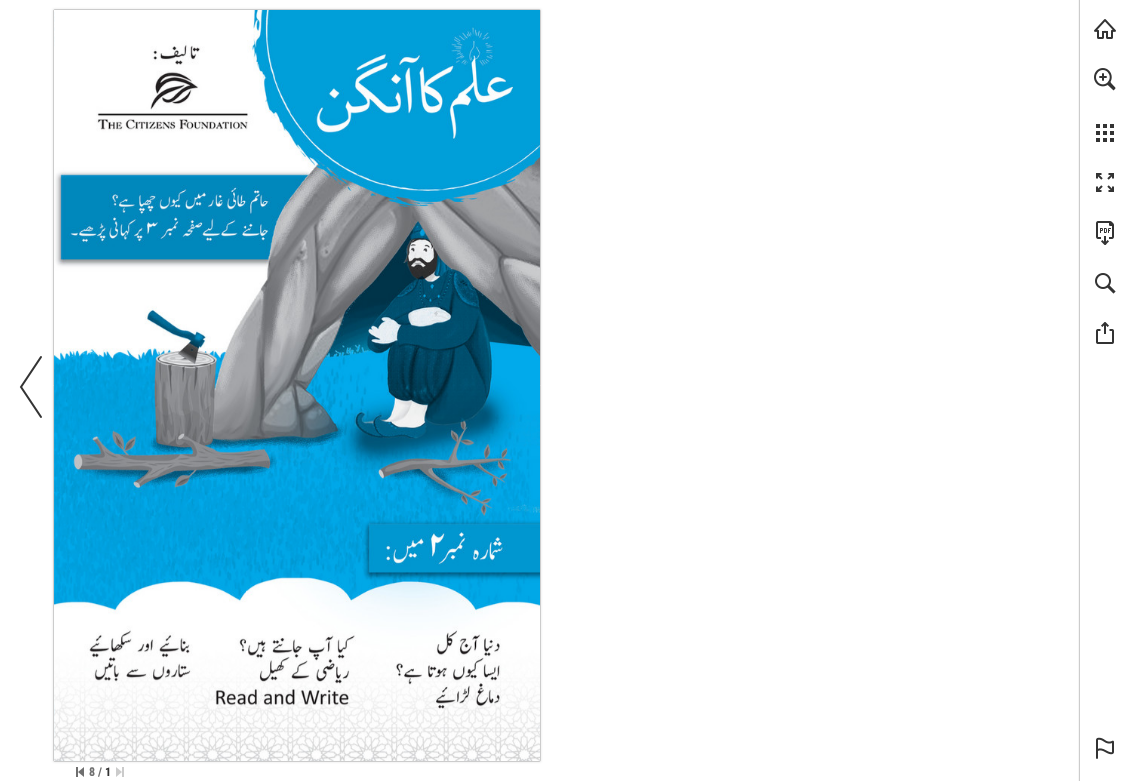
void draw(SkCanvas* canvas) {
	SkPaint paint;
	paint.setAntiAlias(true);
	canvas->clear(0xffffffff);
	paint.setColor(0x0d121212);
	paint.setMaskFilter(SkMaskFilter::MakeBlur(kNormal_SkBlurStyle, 1));
	canvas->drawRoundRect(SkRect::MakeXYWH(52, 8, 490, 755), 3, 3, paint);
	paint.setMaskFilter(nullptr);
	paint.setStroke(true);
	paint.setStrokeWidth(1);
	paint.setColor(0xffcccccc);
	canvas->drawRoundRect(SkRect::MakeXYWH(53.5, 9.5, 487, 752), 1.5, 1.5, paint);
	canvas->drawImageRect(SkImages::DeferredFromEncodedData(SkData::MakeFromFileName("img1.png")), SkRect::MakeXYWH(54, 10, 411, 751), SkSamplingOptions());
	canvas->drawImageRect(SkImages::DeferredFromEncodedData(SkData::MakeFromFileName("img2.png")), SkRect::MakeXYWH(54, 10, 486, 751), SkSamplingOptions());
	canvas->drawImageRect(SkImages::DeferredFromEncodedData(SkData::MakeFromFileName("img3.png")), SkRect::MakeXYWH(19, 356, 23, 62), SkSamplingOptions());
	canvas->drawImageRect(SkImages::DeferredFromEncodedData(SkData::MakeFromFileName("img4.png")), SkRect::MakeXYWH(76, 767, 8, 10), SkSamplingOptions());
	SkFont f1(fontMgr->matchFamilyStyle("Roboto Condensed", SkFontStyle::Bold()), 12);
	f1.setSubpixel(true);
	paint.setStroke(false);
	paint.setColor(0xff707070);
	canvas->drawString("8", 89, 776, f1, paint);
	canvas->drawString("/", 98, 776, f1, paint);
	paint.setColor(0xff333333);
	canvas->drawString("1", 105, 776, f1, paint);
	canvas->drawImageRect(SkImages::DeferredFromEncodedData(SkData::MakeFromFileName("img5.png")), SkRect::MakeXYWH(116, 767, 8, 10), SkSamplingOptions());
	canvas->save();
	canvas->clipRect(SkRect::MakeXYWH(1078, 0, 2, 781));
	paint.setColor(0x33000000);
	paint.setMaskFilter(SkMaskFilter::MakeBlur(kNormal_SkBlurStyle, 0.5));
	canvas->drawRect(SkRect::MakeXYWH(1079, 0, 50, 781), paint);
	paint.setMaskFilter(nullptr);
	canvas->restore();
	canvas->drawImageRect(SkImages::DeferredFromEncodedData(SkData::MakeFromFileName("img6.png")), SkRect::MakeXYWH(1094, 19, 22, 20), SkSamplingOptions());
	canvas->drawImageRect(SkImages::DeferredFromEncodedData(SkData::MakeFromFileName("img7.png")), SkRect::MakeXYWH(1094, 68, 22, 23), SkSamplingOptions());
	canvas->drawImageRect(SkImages::DeferredFromEncodedData(SkData::MakeFromFileName("img8.png")), SkRect::MakeXYWH(1096, 124, 18, 18), SkSamplingOptions());
	canvas->drawImageRect(SkImages::DeferredFromEncodedData(SkData::MakeFromFileName("img9.png")), SkRect::MakeXYWH(1096, 173, 18, 19), SkSamplingOptions());
	canvas->drawImageRect(SkImages::DeferredFromEncodedData(SkData::MakeFromFileName("img10.png")), SkRect::MakeXYWH(1096, 221, 18, 24), SkSamplingOptions());
	canvas->drawImageRect(SkImages::DeferredFromEncodedData(SkData::MakeFromFileName("img11.png")), SkRect::MakeXYWH(1095, 273, 21, 21), SkSamplingOptions());
	canvas->drawImageRect(SkImages::DeferredFromEncodedData(SkData::MakeFromFileName("img12.png")), SkRect::MakeXYWH(1096, 322, 18, 22), SkSamplingOptions());
	canvas->drawImageRect(SkImages::DeferredFromEncodedData(SkData::MakeFromFileName("img13.png")), SkRect::MakeXYWH(1096, 737, 18, 22), SkSamplingOptions());
}
